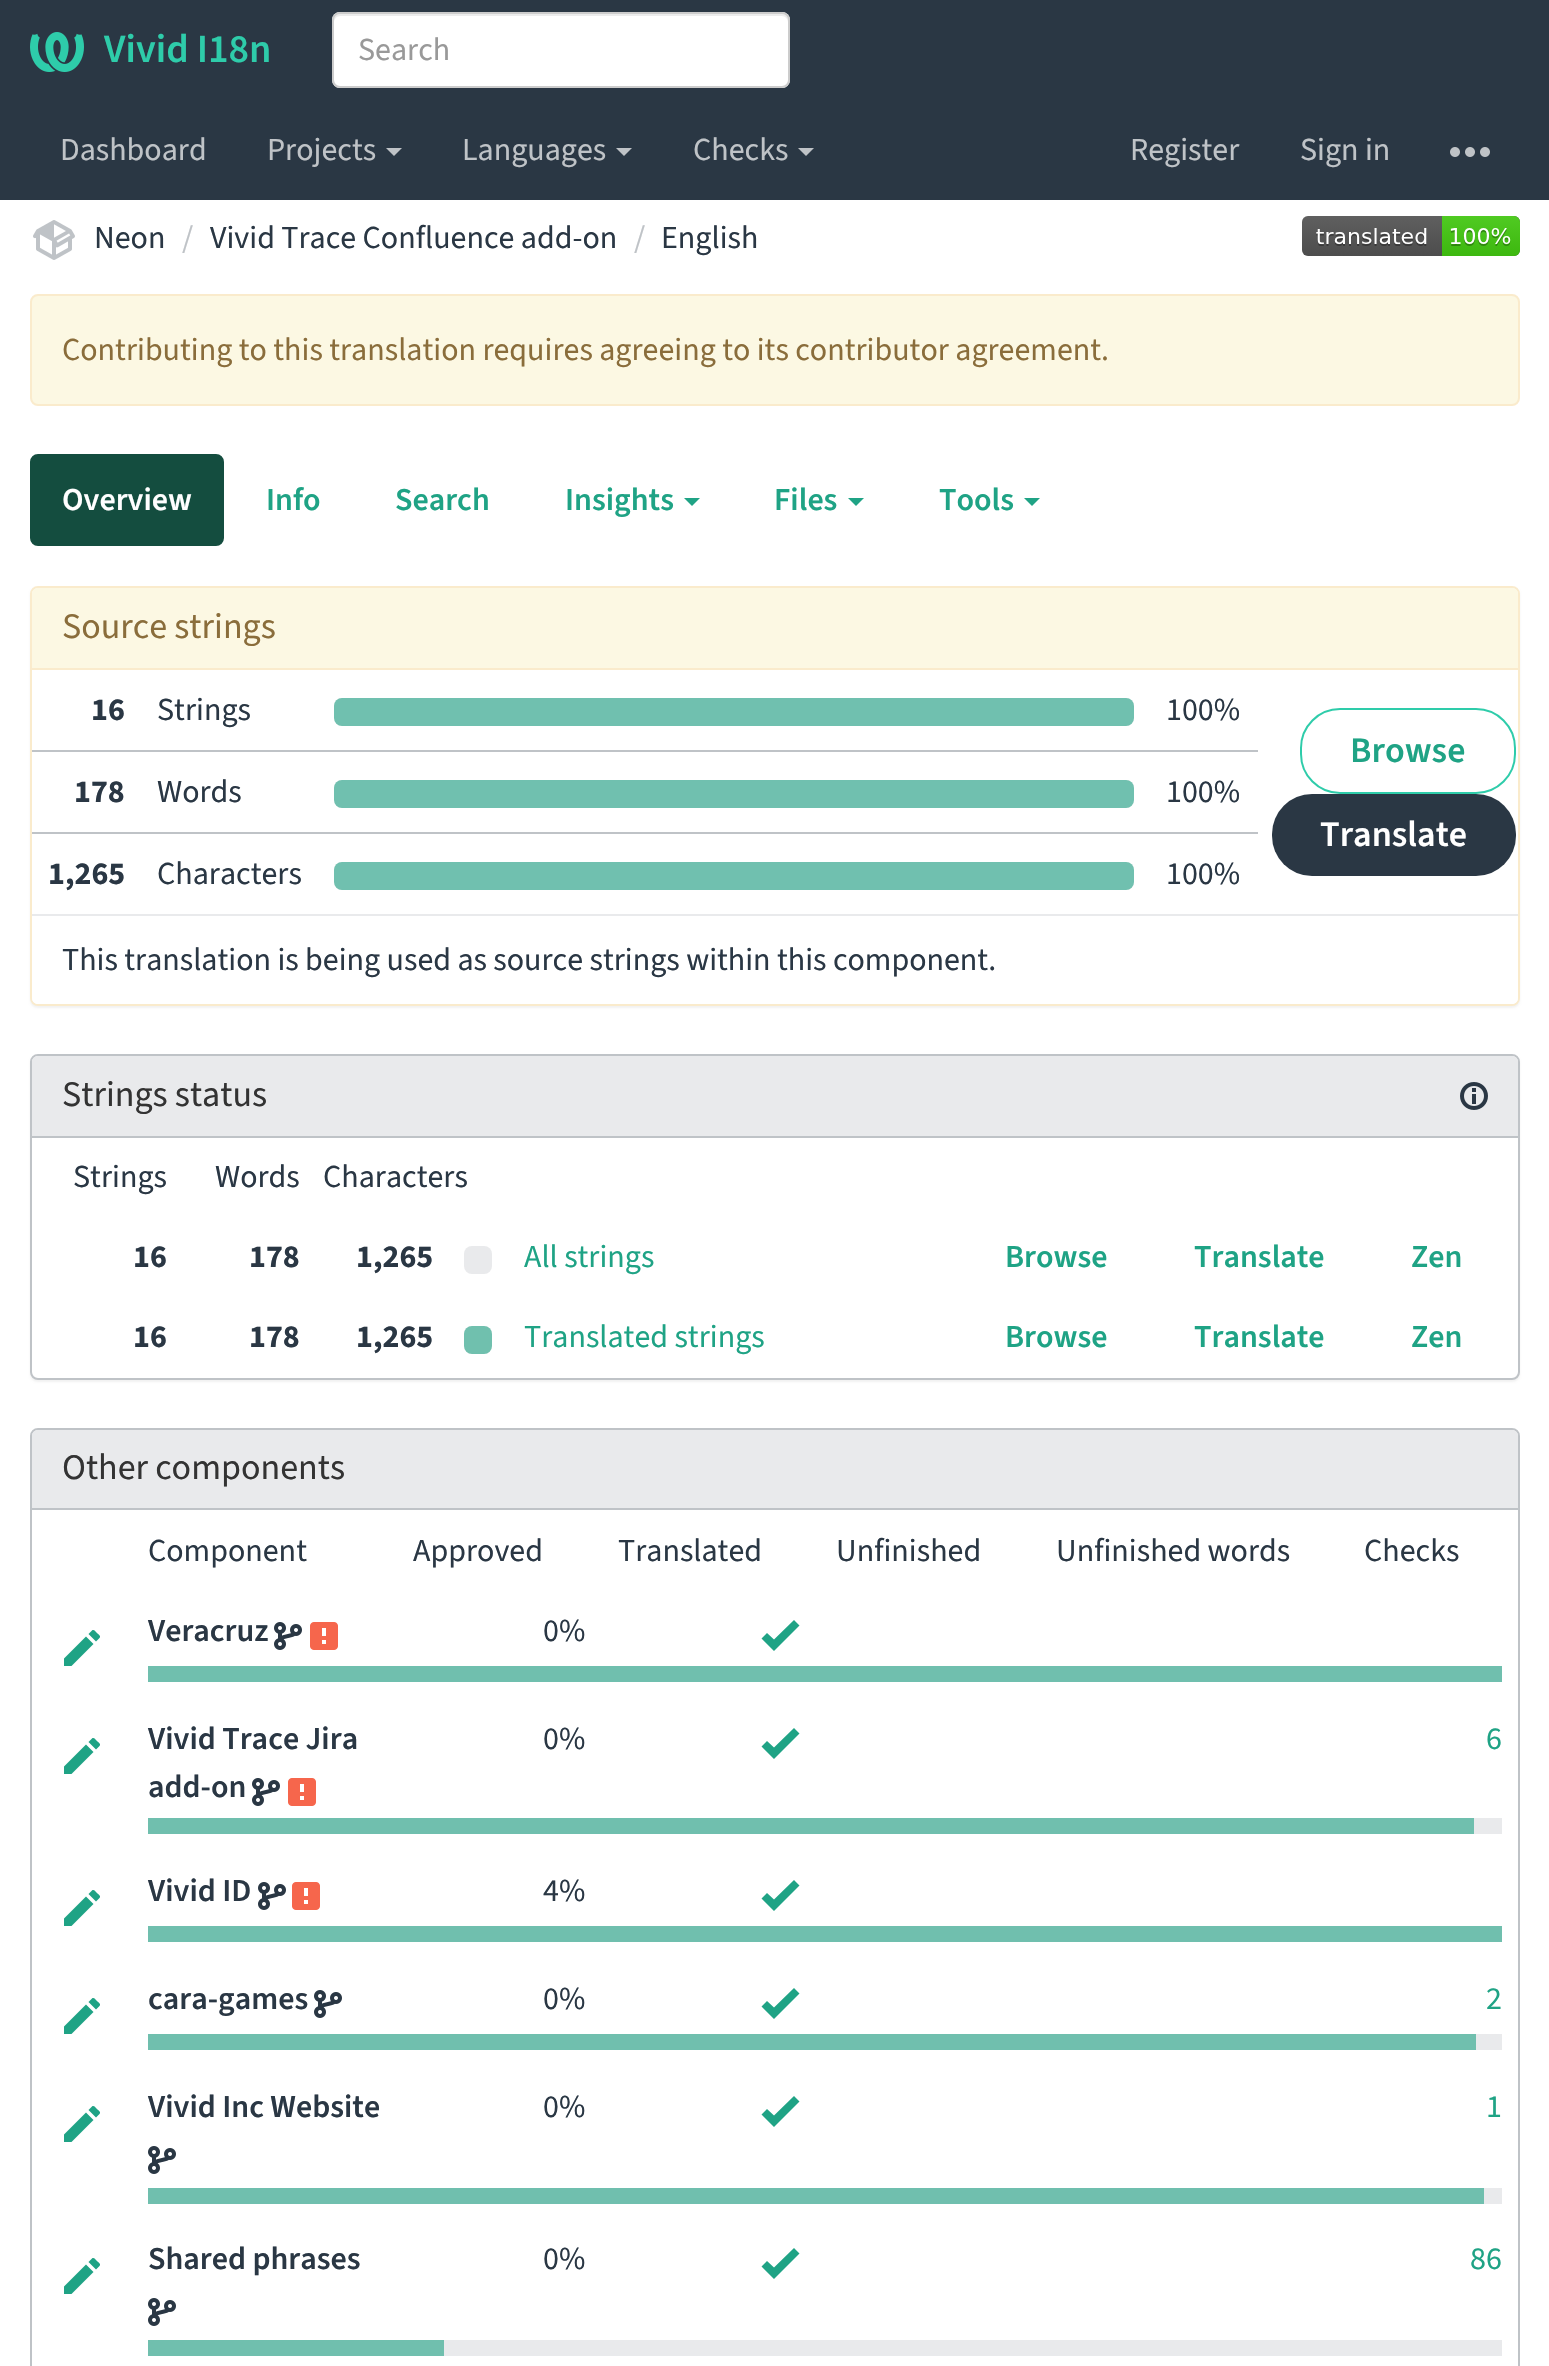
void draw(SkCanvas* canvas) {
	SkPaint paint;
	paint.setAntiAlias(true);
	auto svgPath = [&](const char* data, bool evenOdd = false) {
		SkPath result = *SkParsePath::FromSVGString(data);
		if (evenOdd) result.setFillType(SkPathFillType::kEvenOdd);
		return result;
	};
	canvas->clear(0xffffffff);
	paint.setColor(0xff2a3744);
	canvas->drawRect(SkRect::MakeXYWH(0, 0, 1549, 200), paint);
	canvas->drawImageRect(SkImages::DeferredFromEncodedData(SkData::MakeFromFileName("img1.png")), SkRect::MakeXYWH(30, 32, 54, 40), SkSamplingOptions());
	SkFont f1(fontMgr->matchFamilyStyle("Source Sans 3", SkFontStyle(600, SkFontStyle::kNormal_Width, SkFontStyle::kUpright_Slant)), 40);
	f1.setSubpixel(true);
	paint.setColor(0xff2eccaa);
	canvas->drawString("Vivid I18n", 104, 62, f1, paint);
	paint.setColor(0xffffffff);
	canvas->drawRoundRect(SkRect::MakeXYWH(332, 12, 458, 76), 8, 8, paint);
	paint.setColor(0xffececec);
	canvas->drawPath(svgPath("M340 16H782C785 16 788 19 788 22V20C788 17 785 14 782 14H340C337 14 334 17 334 20V22C334 19 337 16 340 16Z"), paint);
	paint.setStroke(true);
	paint.setStrokeWidth(2);
	paint.setColor(0xffcccccc);
	canvas->drawRoundRect(SkRect::MakeXYWH(333, 13, 456, 74), 7, 7, paint);
	SkFont f2(fontMgr->matchFamilyStyle("Source Sans 3", SkFontStyle::Normal()), 32);
	f2.setSubpixel(true);
	paint.setStroke(false);
	paint.setColor(0xff999999);
	canvas->drawString("Search", 358, 60, f2, paint);
	paint.setColor(0xffbfc3c7);
	canvas->drawString("Dashboard", 60, 160, f2, paint);
	canvas->drawString("Projects", 267, 160, f2, paint);
	canvas->drawPath(svgPath("M386 148H402L394 156Z"), paint);
	canvas->drawString("Languages", 462, 160, f2, paint);
	canvas->drawPath(svgPath("M616 148H632L624 156Z"), paint);
	canvas->drawString("Checks", 693, 160, f2, paint);
	canvas->drawPath(svgPath("M798 148H814L806 156Z"), paint);
	canvas->drawString("Register", 1130, 160, f2, paint);
	canvas->drawString("Sign in", 1300, 160, f2, paint);
	canvas->drawImageRect(SkImages::DeferredFromEncodedData(SkData::MakeFromFileName("img2.png")), SkRect::MakeXYWH(1450, 147, 40, 10), SkSamplingOptions());
	canvas->drawImageRect(SkImages::DeferredFromEncodedData(SkData::MakeFromFileName("img3.png")), SkRect::MakeXYWH(33, 220, 42, 40), SkSamplingOptions());
	paint.setColor(0xff2a3744);
	canvas->drawString("Neon", 94, 248, f2, paint);
	paint.setColor(0xffbfc3c7);
	canvas->drawString("/", 182, 248, f2, paint);
	paint.setColor(0xff2a3744);
	canvas->drawString("Vivid Trace Confluence add-on", 210, 248, f2, paint);
	paint.setColor(0xffbfc3c7);
	canvas->drawString("/", 634, 248, f2, paint);
	paint.setColor(0xff2a3744);
	canvas->drawString("English", 661, 248, f2, paint);
	canvas->drawImageRect(SkImages::DeferredFromEncodedData(SkData::MakeFromFileName("img4.png")), SkRect::MakeXYWH(1302, 216, 218, 40), SkSamplingOptions());
	paint.setColor(0xfffcf8e3);
	canvas->drawRoundRect(SkRect::MakeXYWH(31, 295, 1488, 110), 7, 7, paint);
	paint.setStroke(true);
	paint.setColor(0xfffaebcc);
	canvas->drawRoundRect(SkRect::MakeXYWH(31, 295, 1488, 110), 7, 7, paint);
	paint.setStroke(false);
	paint.setColor(0xff8a6d3b);
	canvas->drawString("Contributing to this translation requires agreeing to its contributor agreement.", 62, 360, f2, paint);
	paint.setColor(0xff144d3f);
	canvas->drawRoundRect(SkRect::MakeXYWH(31, 455, 192, 90), 7, 7, paint);
	paint.setStroke(true);
	canvas->drawRoundRect(SkRect::MakeXYWH(31, 455, 192, 90), 7, 7, paint);
	SkFont f3(fontMgr->matchFamilyStyle("Source Sans 3", SkFontStyle(600, SkFontStyle::kNormal_Width, SkFontStyle::kUpright_Slant)), 32);
	f3.setSubpixel(true);
	paint.setStroke(false);
	paint.setColor(0xffffffff);
	canvas->drawString("Overview", 62, 510, f3, paint);
	paint.setColor(0xff1fa385);
	canvas->drawString("Info", 266, 510, f3, paint);
	canvas->drawString("Search", 395, 510, f3, paint);
	canvas->drawString("Insights", 565, 510, f3, paint);
	canvas->drawPath(svgPath("M684 498H700L692 506Z"), paint);
	canvas->drawString("Files", 774, 510, f3, paint);
	canvas->drawPath(svgPath("M848 498H864L856 506Z"), paint);
	canvas->drawString("Tools", 939, 510, f3, paint);
	canvas->drawPath(svgPath("M1024 498H1040L1032 506Z"), paint);
	paint.setColor(0x0d000000);
	paint.setMaskFilter(SkMaskFilter::MakeBlur(kNormal_SkBlurStyle, 1));
	canvas->drawRoundRect(SkRect::MakeXYWH(30, 588, 1490, 420), 8, 8, paint);
	paint.setMaskFilter(nullptr);
	paint.setColor(0xffffffff);
	canvas->drawRoundRect(SkRect::MakeXYWH(31, 587, 1488, 418), 7, 7, paint);
	paint.setStroke(true);
	paint.setColor(0xfffaebcc);
	canvas->drawRoundRect(SkRect::MakeXYWH(31, 587, 1488, 418), 7, 7, paint);
	paint.setStroke(false);
	paint.setColor(0xfffcf8e3);
	canvas->drawPath(svgPath("M38 588H1512C1515.5 588 1518 590.5 1518 594V670H32V594C32 590.5 34.5 588 38 588Z"), paint);
	paint.setColor(0xfffaebcc);
	canvas->drawRect(SkRect::MakeXYWH(32, 668, 1486, 2), paint);
	SkFont f4(fontMgr->matchFamilyStyle("Source Sans 3", SkFontStyle::Normal()), 36);
	f4.setSubpixel(true);
	paint.setColor(0xff8a6d3b);
	canvas->drawString("Source strings", 62, 638, f4, paint);
	SkFont f5(fontMgr->matchFamilyStyle("Source Sans 3", SkFontStyle::Bold()), 32);
	f5.setSubpixel(true);
	paint.setColor(0xff2a3744);
	canvas->drawString("16", 91, 720, f5, paint);
	canvas->drawString("Strings", 157, 720, f2, paint);
	paint.setColor(0xffe9eaec);
	canvas->drawRoundRect(SkRect::MakeXYWH(334, 698, 800, 28), 8, 8, paint);
	paint.setColor(0x991fa385);
	canvas->drawRoundRect(SkRect::MakeXYWH(334, 698, 800, 28), 8, 8, paint);
	paint.setColor(0xff2a3744);
	canvas->drawString("100%", 1166, 720, f2, paint);
	paint.setStroke(true);
	paint.setColor(0xff2eccaa);
	canvas->drawRoundRect(SkRect::MakeXYWH(1301, 709, 214, 84), 39, 39, paint);
	SkFont f6(fontMgr->matchFamilyStyle("Source Sans 3", SkFontStyle(600, SkFontStyle::kNormal_Width, SkFontStyle::kUpright_Slant)), 36);
	f6.setSubpixel(true);
	paint.setStroke(false);
	paint.setColor(0xff1fa385);
	canvas->drawString("Browse", 1350, 762, f6, paint);
	paint.setColor(0xff2a3744);
	canvas->drawRoundRect(SkRect::MakeXYWH(1272, 794, 244, 82), 40, 40, paint);
	paint.setColor(0xffffffff);
	canvas->drawString("Translate", 1320, 846, f6, paint);
	paint.setColor(0xff2a3744);
	canvas->drawString("178", 74, 802, f5, paint);
	canvas->drawString("Words", 157, 802, f2, paint);
	paint.setColor(0xffe9eaec);
	canvas->drawRoundRect(SkRect::MakeXYWH(334, 780, 800, 28), 8, 8, paint);
	paint.setColor(0x991fa385);
	canvas->drawRoundRect(SkRect::MakeXYWH(334, 780, 800, 28), 8, 8, paint);
	paint.setColor(0xffbfc3c7);
	canvas->drawRect(SkRect::MakeXYWH(32, 750, 1226, 2), paint);
	paint.setColor(0xff2a3744);
	canvas->drawString("100%", 1166, 802, f2, paint);
	canvas->drawString("1,265", 48, 884, f5, paint);
	canvas->drawString("Characters", 157, 884, f2, paint);
	paint.setColor(0xffe9eaec);
	canvas->drawRoundRect(SkRect::MakeXYWH(334, 862, 800, 28), 8, 8, paint);
	paint.setColor(0x991fa385);
	canvas->drawRoundRect(SkRect::MakeXYWH(334, 862, 800, 28), 8, 8, paint);
	paint.setColor(0xffbfc3c7);
	canvas->drawRect(SkRect::MakeXYWH(32, 832, 1226, 2), paint);
	paint.setColor(0xff2a3744);
	canvas->drawString("100%", 1166, 884, f2, paint);
	paint.setColor(0xffffffff);
	canvas->drawPath(svgPath("M32 914H1518V998C1518 1001.5 1515.5 1004 1512 1004H38C34.5 1004 32 1001.5 32 998Z"), paint);
	paint.setColor(0xffe9eaec);
	canvas->drawRect(SkRect::MakeXYWH(32, 914, 1486, 2), paint);
	paint.setColor(0xff2a3744);
	canvas->drawString("This translation is being used as source strings within this component.", 62, 970, f2, paint);
	paint.setColor(0x0d000000);
	paint.setMaskFilter(SkMaskFilter::MakeBlur(kNormal_SkBlurStyle, 1));
	canvas->drawRoundRect(SkRect::MakeXYWH(30, 1056, 1490, 326), 8, 8, paint);
	paint.setMaskFilter(nullptr);
	paint.setColor(0xffffffff);
	canvas->drawRoundRect(SkRect::MakeXYWH(31, 1055, 1488, 324), 7, 7, paint);
	paint.setStroke(true);
	paint.setColor(0xffbfc3c7);
	canvas->drawRoundRect(SkRect::MakeXYWH(31, 1055, 1488, 324), 7, 7, paint);
	paint.setStroke(false);
	paint.setColor(0xffe9eaec);
	canvas->drawPath(svgPath("M38 1056H1512C1515.5 1056 1518 1058.5 1518 1062V1138H32V1062C32 1058.5 34.5 1056 38 1056Z"), paint);
	paint.setColor(0xffbfc3c7);
	canvas->drawRect(SkRect::MakeXYWH(32, 1136, 1486, 2), paint);
	paint.setColor(0xff333333);
	canvas->drawString("Strings status", 62, 1106, f4, paint);
	canvas->drawImageRect(SkImages::DeferredFromEncodedData(SkData::MakeFromFileName("img5.png")), SkRect::MakeXYWH(1460, 1082, 28, 28), SkSamplingOptions());
	paint.setColor(0xff2a3744);
	canvas->drawString("Strings", 73, 1187, f2, paint);
	canvas->drawString("Words", 215, 1187, f2, paint);
	canvas->drawString("Characters", 323, 1187, f2, paint);
	canvas->drawString("16", 133, 1267, f5, paint);
	canvas->drawString("178", 249, 1267, f5, paint);
	canvas->drawString("1,265", 356, 1267, f5, paint);
	paint.setColor(0xffe9eaec);
	canvas->drawRoundRect(SkRect::MakeXYWH(464, 1246, 28, 28), 8, 8, paint);
	paint.setColor(0xff1fa385);
	canvas->drawString("All strings", 524, 1267, f2, paint);
	canvas->drawString("Browse", 1005, 1267, f3, paint);
	canvas->drawString("Translate", 1194, 1267, f3, paint);
	canvas->drawString("Zen", 1411, 1267, f3, paint);
	paint.setColor(0xff2a3744);
	canvas->drawString("16", 133, 1347, f5, paint);
	canvas->drawString("178", 249, 1347, f5, paint);
	canvas->drawString("1,265", 356, 1347, f5, paint);
	paint.setColor(0xffe9eaec);
	canvas->drawRoundRect(SkRect::MakeXYWH(464, 1326, 28, 28), 8, 8, paint);
	paint.setColor(0x991fa385);
	canvas->drawRoundRect(SkRect::MakeXYWH(464, 1326, 28, 28), 8, 8, paint);
	paint.setColor(0xff1fa385);
	canvas->drawString("Translated strings", 524, 1347, f2, paint);
	canvas->drawString("Browse", 1005, 1347, f3, paint);
	canvas->drawString("Translate", 1194, 1347, f3, paint);
	canvas->drawString("Zen", 1411, 1347, f3, paint);
	paint.setStroke(true);
	paint.setColor(0xffbfc3c7);
	canvas->drawRoundRect(SkRect::MakeXYWH(31, 1429, 1488, 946), 7, 7, paint);
	paint.setStroke(false);
	paint.setColor(0xffe9eaec);
	canvas->drawPath(svgPath("M38 1430H1512C1515.5 1430 1518 1432.5 1518 1436V1510H32V1436C32 1432.5 34.5 1430 38 1430Z"), paint);
	paint.setColor(0xffbfc3c7);
	canvas->drawRect(SkRect::MakeXYWH(32, 1508, 1486, 2), paint);
	paint.setColor(0xff333333);
	canvas->drawString("Other components", 62, 1479, f4, paint);
	paint.setColor(0xff2a3744);
	canvas->drawString("Component", 148, 1561, f2, paint);
	canvas->drawString("Approved", 413, 1561, f2, paint);
	canvas->drawString("Translated", 618, 1561, f2, paint);
	canvas->drawString("Unfinished", 836, 1561, f2, paint);
	canvas->drawString("Unfinished words", 1056, 1561, f2, paint);
	canvas->drawString("Checks", 1364, 1561, f2, paint);
	paint.setColor(0xff1fa385);
	canvas->drawPath(svgPath("M64 1658.5V1666H71.5L93.5 1644L86 1636.5ZM99.5 1638C101.5 1636 98 1634 97 1633C96 1632 94.5 1629.5 92.5 1630L88.5 1634L96 1641.5Z"), paint);
	paint.setColor(0xff2a3744);
	canvas->drawString("Veracruz", 148, 1641, f3, paint);
	canvas->drawImageRect(SkImages::DeferredFromEncodedData(SkData::MakeFromFileName("img6.png")), SkRect::MakeXYWH(274, 1622, 28, 28), SkSamplingOptions());
	canvas->drawImageRect(SkImages::DeferredFromEncodedData(SkData::MakeFromFileName("img7.png")), SkRect::MakeXYWH(310, 1622, 28, 28), SkSamplingOptions());
	canvas->drawString("0%", 543, 1641, f2, paint);
	paint.setColor(0xff1fa385);
	canvas->drawPath(svgPath("M774 1651L761.5 1638.5L767 1633L774 1639.5L794 1620L799.5 1625.5Z"), paint);
	paint.setColor(0xff70bfae);
	canvas->drawRect(SkRect::MakeXYWH(148, 1666, 1354, 16), paint);
	paint.setColor(0xff1fa385);
	canvas->drawPath(svgPath("M64 1766.5V1774H71.5L93.5 1752L86 1744.5ZM99.5 1746C101.5 1744 98 1742 97 1741C96 1740 94.5 1737.5 92.5 1738L88.5 1742L96 1749.5Z"), paint);
	paint.setColor(0xff2a3744);
	canvas->drawString("Vivid Trace Jira", 148, 1749, f3, paint);
	canvas->drawString("add-on", 148, 1797, f3, paint);
	canvas->drawImageRect(SkImages::DeferredFromEncodedData(SkData::MakeFromFileName("img6.png")), SkRect::MakeXYWH(252, 1778, 28, 28), SkSamplingOptions());
	canvas->drawImageRect(SkImages::DeferredFromEncodedData(SkData::MakeFromFileName("img7.png")), SkRect::MakeXYWH(288, 1778, 28, 28), SkSamplingOptions());
	canvas->drawString("0%", 543, 1749, f2, paint);
	paint.setColor(0xff1fa385);
	canvas->drawPath(svgPath("M774 1759L761.5 1746.5L767 1741L774 1747.5L794 1728L799.5 1733.5Z"), paint);
	canvas->drawString("6", 1486, 1749, f2, paint);
	paint.setColor(0xffe9eaec);
	canvas->drawRect(SkRect::MakeXYWH(1474, 1818, 28, 16), paint);
	paint.setColor(0xff70bfae);
	canvas->drawRect(SkRect::MakeXYWH(148, 1818, 1326, 16), paint);
	paint.setColor(0xff1fa385);
	canvas->drawPath(svgPath("M64 1918.5V1926H71.5L93.5 1904L86 1896.5ZM99.5 1898C101.5 1896 98 1894 97 1893C96 1892 94.5 1889.5 92.5 1890L88.5 1894L96 1901.5Z"), paint);
	paint.setColor(0xff2a3744);
	canvas->drawString("Vivid ID", 148, 1901, f3, paint);
	canvas->drawImageRect(SkImages::DeferredFromEncodedData(SkData::MakeFromFileName("img6.png")), SkRect::MakeXYWH(258, 1882, 28, 28), SkSamplingOptions());
	canvas->drawImageRect(SkImages::DeferredFromEncodedData(SkData::MakeFromFileName("img7.png")), SkRect::MakeXYWH(292, 1882, 28, 28), SkSamplingOptions());
	canvas->drawString("4%", 543, 1901, f2, paint);
	paint.setColor(0xff1fa385);
	canvas->drawPath(svgPath("M774 1911L761.5 1898.5L767 1893L774 1899.5L794 1880L799.5 1885.5Z"), paint);
	paint.setColor(0xff70bfae);
	canvas->drawRect(SkRect::MakeXYWH(148, 1926, 1354, 16), paint);
	paint.setColor(0xff1fa385);
	canvas->drawPath(svgPath("M64 2026.5V2034H71.5L93.5 2012L86 2004.5ZM99.5 2006C101.5 2004 98 2002 97 2001C96 2000 94.5 1997.5 92.5 1998L88.5 2002L96 2009.5Z"), paint);
	paint.setColor(0xff2a3744);
	canvas->drawString("cara-games", 148, 2009, f3, paint);
	canvas->drawImageRect(SkImages::DeferredFromEncodedData(SkData::MakeFromFileName("img6.png")), SkRect::MakeXYWH(314, 1990, 28, 28), SkSamplingOptions());
	canvas->drawString("0%", 543, 2009, f2, paint);
	paint.setColor(0xff1fa385);
	canvas->drawPath(svgPath("M774 2019L761.5 2006.5L767 2001L774 2007.5L794 1988L799.5 1993.5Z"), paint);
	canvas->drawString("2", 1486, 2009, f2, paint);
	paint.setColor(0xffe9eaec);
	canvas->drawRect(SkRect::MakeXYWH(1476, 2034, 26, 16), paint);
	paint.setColor(0xff70bfae);
	canvas->drawRect(SkRect::MakeXYWH(148, 2034, 1328, 16), paint);
	paint.setColor(0xff1fa385);
	canvas->drawPath(svgPath("M64 2134.5V2142H71.5L93.5 2120L86 2112.5ZM99.5 2114C101.5 2112 98 2110 97 2109C96 2108 94.5 2105.5 92.5 2106L88.5 2110L96 2117.5Z"), paint);
	paint.setColor(0xff2a3744);
	canvas->drawString("Vivid Inc Website", 148, 2117, f3, paint);
	canvas->drawImageRect(SkImages::DeferredFromEncodedData(SkData::MakeFromFileName("img6.png")), SkRect::MakeXYWH(148, 2146, 28, 28), SkSamplingOptions());
	canvas->drawString("0%", 543, 2117, f2, paint);
	paint.setColor(0xff1fa385);
	canvas->drawPath(svgPath("M774 2127L761.5 2114.5L767 2109L774 2115.5L794 2096L799.5 2101.5Z"), paint);
	canvas->drawString("1", 1486, 2117, f2, paint);
	paint.setColor(0xffe9eaec);
	canvas->drawRect(SkRect::MakeXYWH(1484, 2188, 18, 16), paint);
	paint.setColor(0xff70bfae);
	canvas->drawRect(SkRect::MakeXYWH(148, 2188, 1336, 16), paint);
	paint.setColor(0xff1fa385);
	canvas->drawPath(svgPath("M64 2286.5V2294H71.5L93.5 2272L86 2264.5ZM99.5 2266C101.5 2264 98 2262 97 2261C96 2260 94.5 2257.5 92.5 2258L88.5 2262L96 2269.5Z"), paint);
	paint.setColor(0xff2a3744);
	canvas->drawString("Shared phrases", 148, 2269, f3, paint);
	canvas->drawImageRect(SkImages::DeferredFromEncodedData(SkData::MakeFromFileName("img6.png")), SkRect::MakeXYWH(148, 2298, 28, 28), SkSamplingOptions());
	canvas->drawString("0%", 543, 2269, f2, paint);
	paint.setColor(0xff1fa385);
	canvas->drawPath(svgPath("M774 2279L761.5 2266.5L767 2261L774 2267.5L794 2248L799.5 2253.5Z"), paint);
	canvas->drawString("86", 1470, 2269, f2, paint);
	paint.setColor(0xffe9eaec);
	canvas->drawRect(SkRect::MakeXYWH(444, 2340, 1058, 16), paint);
	paint.setColor(0xff70bfae);
	canvas->drawRect(SkRect::MakeXYWH(148, 2340, 296, 16), paint);
}
